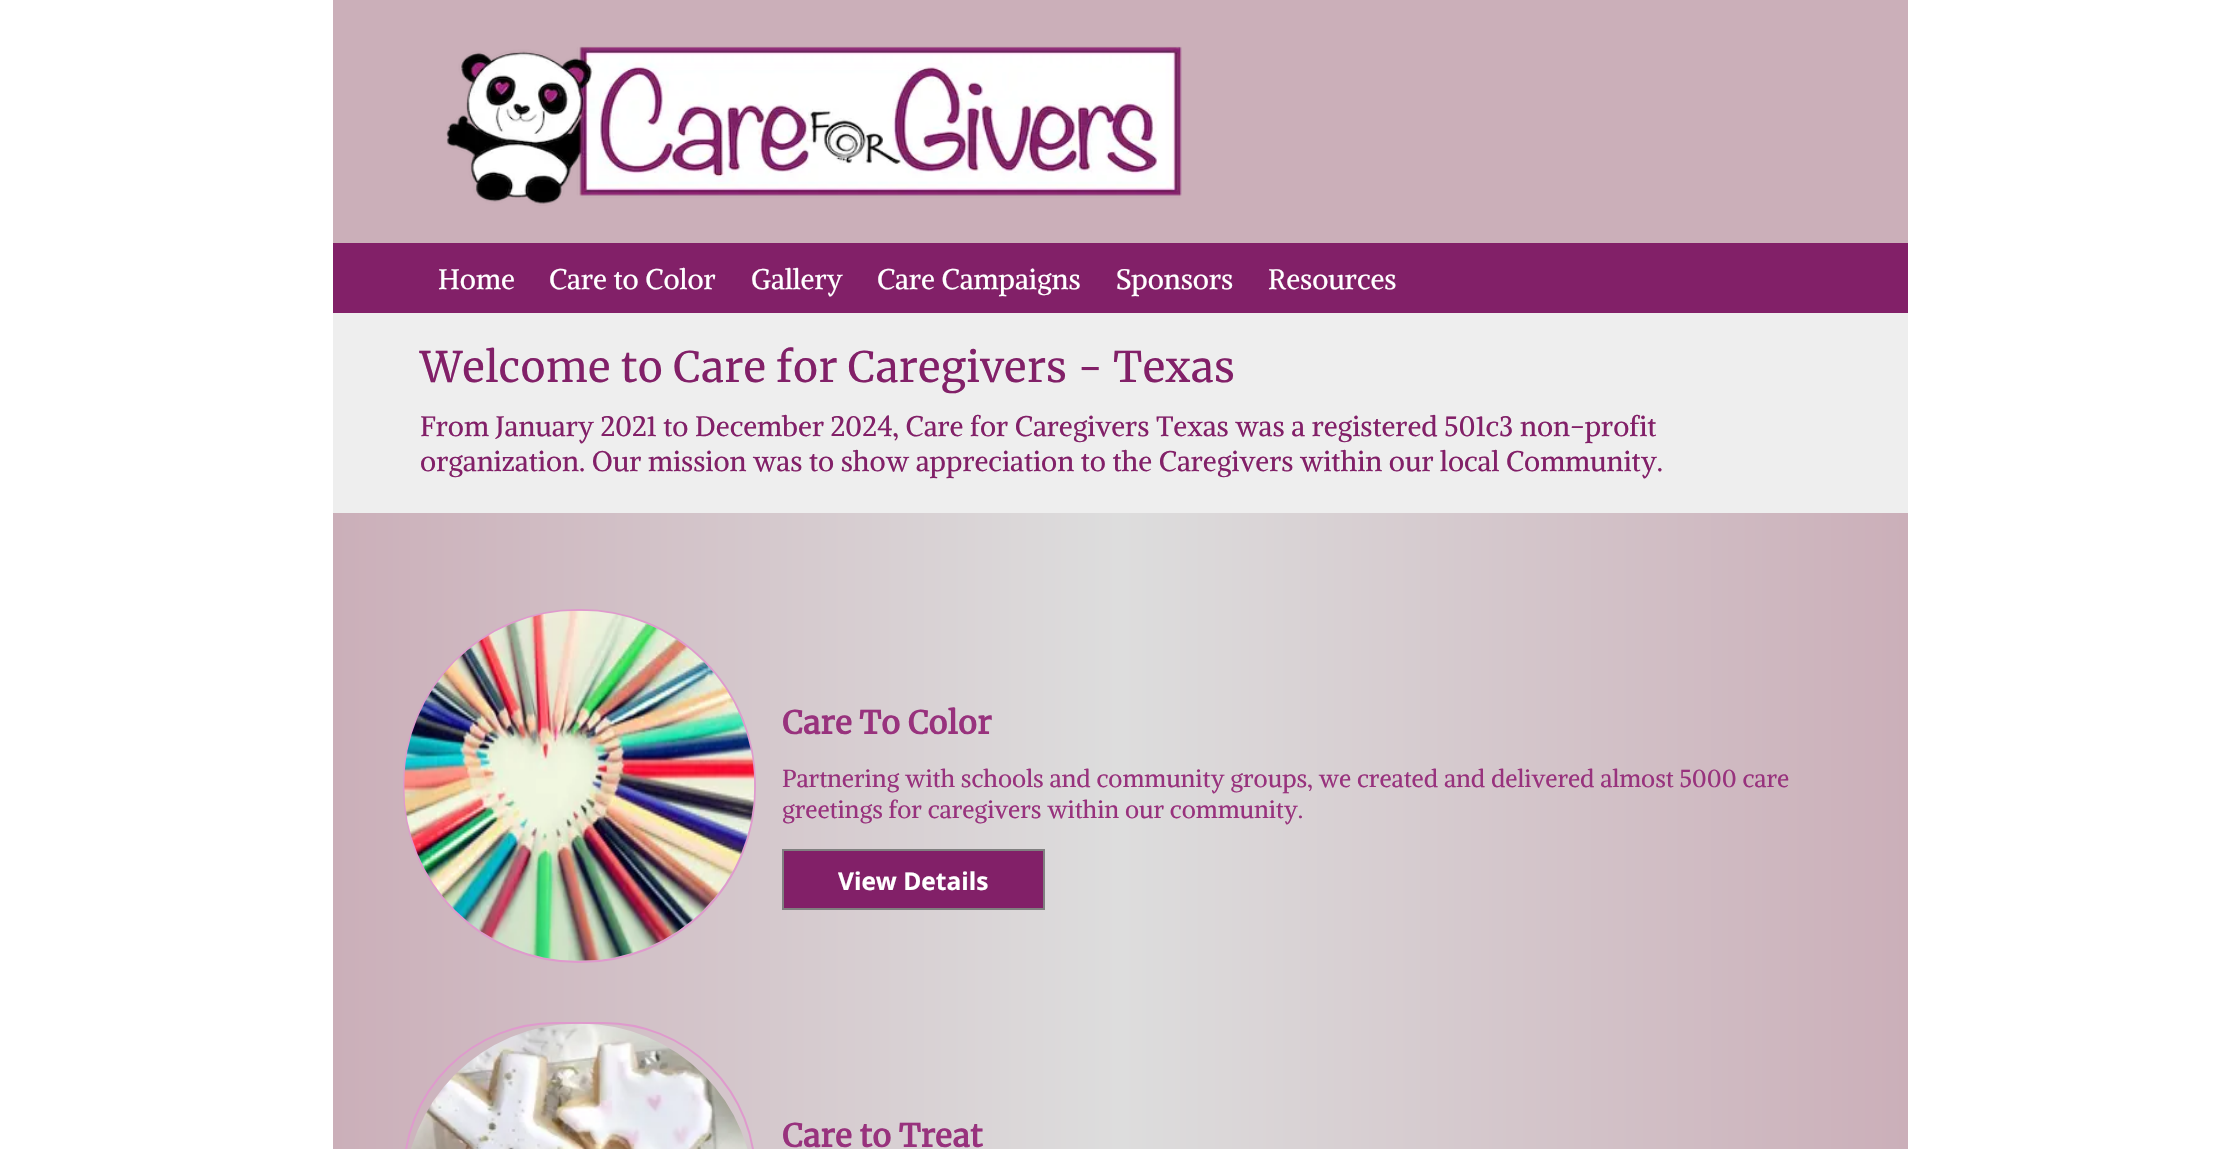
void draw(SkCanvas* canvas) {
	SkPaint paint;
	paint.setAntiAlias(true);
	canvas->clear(0xffffffff);
	paint.setColor(0xffcbafb9);
	canvas->drawRect(SkRect::MakeXYWH(333, 0, 1575, 243), paint);
	canvas->drawImageRect(SkImages::DeferredFromEncodedData(SkData::MakeFromFileName("img1.png")), SkRect::MakeXYWH(446, 46, 736, 160), SkSamplingOptions());
	paint.setColor(0xff822068);
	canvas->drawRect(SkRect::MakeXYWH(333, 243, 1575, 70), paint);
	SkFont f1(fontMgr->matchFamilyStyle("Alike", SkFontStyle::Normal()), 28);
	f1.setSubpixel(true);
	paint.setColor(0xffffffff);
	canvas->drawString("Home", 438, 289, f1, paint);
	canvas->drawString("Care to Color", 549, 289, f1, paint);
	canvas->drawString("Gallery", 751, 289, f1, paint);
	canvas->drawString("Care Campaigns", 877, 289, f1, paint);
	canvas->drawString("Sponsors", 1116, 289, f1, paint);
	canvas->drawString("Resources", 1268, 289, f1, paint);
	paint.setColor(0xffeeeeee);
	canvas->drawRect(SkRect::MakeXYWH(333, 313, 1575, 200), paint);
	SkFont f2(fontMgr->matchFamilyStyle("Merriweather", SkFontStyle::Normal()), 42);
	f2.setSubpixel(true);
	paint.setColor(0xff822068);
	canvas->drawString("Welcome to Care for Caregivers - Texas", 420, 382, f2, paint);
	canvas->drawString("From January 2021 to December 2024, Care for Caregivers Texas was a registered 501c3 non-profit", 420, 436, f1, paint);
	canvas->drawString("organization. Our mission was to show appreciation to the Caregivers within our local Community.", 420, 471, f1, paint);
	{
		const SkColor colors[] = {0xffcbafb9, 0xffdddddd, 0xffcbafb9};
		const float stops[] = {0, 0.5, 1};
		const SkPoint ends[] = {{333, 1136}, {1908, 1136}};
		paint.setShader(SkGradientShader::MakeLinear(ends, colors, stops, 3, SkTileMode::kClamp));
		paint.setAlpha(255);
	}
	canvas->drawRect(SkRect::MakeXYWH(333, 513, 1575, 636), paint);
	paint.setStroke(true);
	paint.setStrokeWidth(2);
	paint.setShader(nullptr);
	paint.setColor(0xffdf9acd);
	canvas->drawRoundRect(SkRect::MakeXYWH(404, 610, 351, 352), 174, 174, paint);
	canvas->drawImageRect(SkImages::DeferredFromEncodedData(SkData::MakeFromFileName("img2.png")), SkRect::MakeXYWH(404, 610, 351, 351), SkSamplingOptions());
	SkFont f3(fontMgr->matchFamilyStyle("Merriweather", SkFontStyle::Bold()), 31.5);
	f3.setSubpixel(true);
	paint.setStroke(false);
	paint.setColor(0xff98327d);
	canvas->drawString("Care To Color", 782, 734, f3, paint);
	SkFont f4(fontMgr->matchFamilyStyle("Alike", SkFontStyle::Normal()), 24.5);
	f4.setSubpixel(true);
	canvas->drawString("Partnering with schools and community groups, we created and delivered almost 5000 care", 782, 787, f4, paint);
	canvas->drawString("greetings for caregivers within our community.", 782, 818, f4, paint);
	paint.setColor(0xff822068);
	canvas->drawRect(SkRect::MakeXYWH(783, 850, 261, 59), paint);
	paint.setStroke(true);
	paint.setColor(0xff808080);
	canvas->drawRect(SkRect::MakeXYWH(783, 850, 261, 59), paint);
	SkFont f5(fontMgr->matchFamilyStyle("Open Sans", SkFontStyle::Bold()), 24.5);
	f5.setSubpixel(true);
	paint.setStroke(false);
	paint.setColor(0xffffffff);
	canvas->drawString("View Details", 838, 890, f5, paint);
	paint.setStroke(true);
	paint.setColor(0xffdf9acd);
	canvas->drawRoundRect(SkRect::MakeXYWH(404, 1023, 351, 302), 174, 174, paint);
	canvas->drawImageRect(SkImages::DeferredFromEncodedData(SkData::MakeFromFileName("img3.png")), SkRect::MakeXYWH(411, 1023, 337, 126), SkSamplingOptions());
	paint.setStroke(false);
	paint.setColor(0xff98327d);
	canvas->drawString("Care to Treat", 782, 1147, f3, paint);
}
